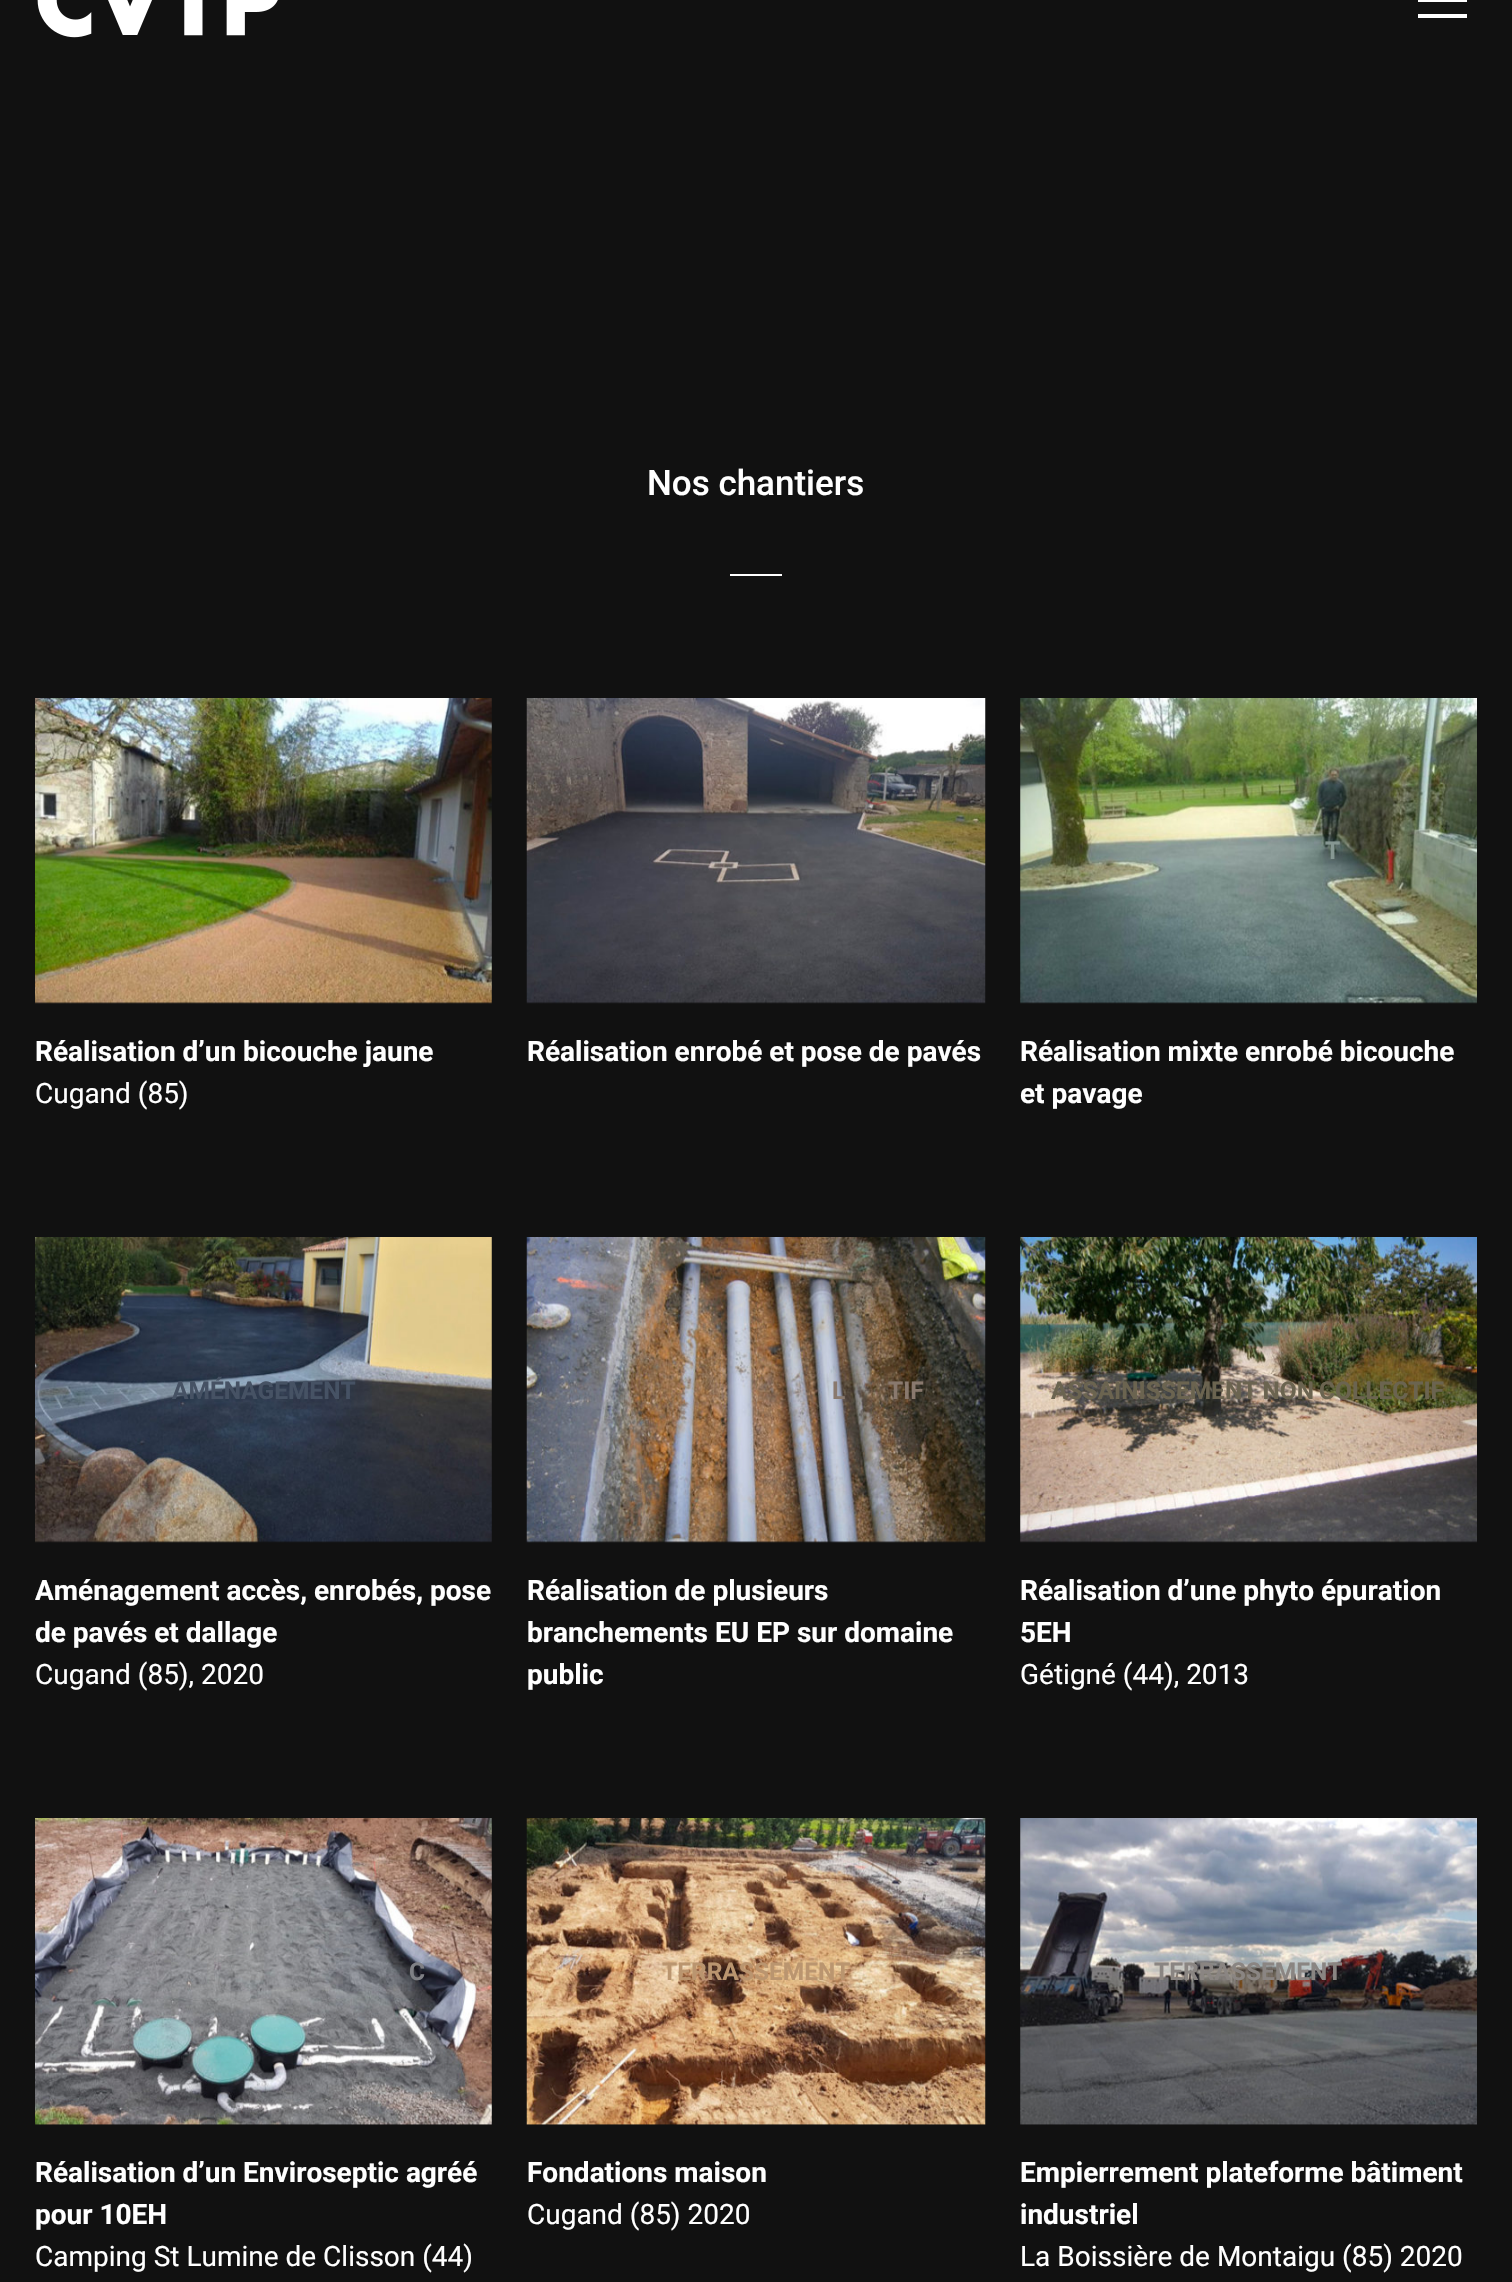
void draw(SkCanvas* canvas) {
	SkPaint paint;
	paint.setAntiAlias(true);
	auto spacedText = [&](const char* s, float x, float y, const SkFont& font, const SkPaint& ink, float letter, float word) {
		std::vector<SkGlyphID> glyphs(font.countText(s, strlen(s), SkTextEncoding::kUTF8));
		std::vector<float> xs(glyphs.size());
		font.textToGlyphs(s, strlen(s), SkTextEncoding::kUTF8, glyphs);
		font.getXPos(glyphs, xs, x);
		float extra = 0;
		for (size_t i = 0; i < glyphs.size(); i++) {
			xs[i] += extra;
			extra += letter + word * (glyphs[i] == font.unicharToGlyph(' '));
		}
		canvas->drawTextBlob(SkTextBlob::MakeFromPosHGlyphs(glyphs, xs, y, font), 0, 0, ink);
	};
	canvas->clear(0xff111111);
	canvas->drawImageRect(SkImages::DeferredFromEncodedData(SkData::MakeFromFileName("img1.png")), SkRect::MakeXYWH(37, 0, 241, 38), SkSamplingOptions());
	paint.setColor(0xffffffff);
	canvas->drawRect(SkRect::MakeXYWH(1418, 14, 49, 4), paint);
	canvas->drawRect(SkRect::MakeXYWH(1418, 0, 49, 2), paint);
	SkFont f1(fontMgr->matchFamilyStyle("Roboto", SkFontStyle(500, SkFontStyle::kNormal_Width, SkFontStyle::kUpright_Slant)), 35);
	f1.setSubpixel(true);
	canvas->drawString("Nos chantiers", 647, 495, f1, paint);
	canvas->drawRect(SkRect::MakeXYWH(730, 574, 52, 2), paint);
	canvas->drawImageRect(SkImages::DeferredFromEncodedData(SkData::MakeFromFileName("img2.png")), SkRect::MakeXYWH(35, 698, 457, 306), SkSamplingOptions());
	SkFont f2(fontMgr->matchFamilyStyle("Roboto", SkFontStyle::Bold()), 28);
	f2.setSubpixel(true);
	canvas->drawString("Réalisation d’un bicouche jaune", 35, 1061, f2, paint);
	SkFont f3(fontMgr->matchFamilyStyle("Roboto", SkFontStyle::Normal()), 28);
	f3.setSubpixel(true);
	canvas->drawString("Cugand (85)", 35, 1103, f3, paint);
	canvas->drawImageRect(SkImages::DeferredFromEncodedData(SkData::MakeFromFileName("img3.png")), SkRect::MakeXYWH(526, 698, 460, 306), SkSamplingOptions());
	canvas->drawString("Réalisation enrobé et pose de pavés", 527, 1061, f2, paint);
	canvas->drawImageRect(SkImages::DeferredFromEncodedData(SkData::MakeFromFileName("img4.png")), SkRect::MakeXYWH(1020, 698, 457, 306), SkSamplingOptions());
	SkFont f4(fontMgr->matchFamilyStyle("Roboto", SkFontStyle::Bold()), 24.5);
	f4.setSubpixel(true);
	paint.setColor(0xff869792);
	canvas->drawString("T", 1325, 859, f4, paint);
	paint.setColor(0xffffffff);
	canvas->drawString("Réalisation mixte enrobé bicouche", 1020, 1061, f2, paint);
	canvas->drawString("et pavage", 1020, 1103, f2, paint);
	canvas->drawImageRect(SkImages::DeferredFromEncodedData(SkData::MakeFromFileName("img5.png")), SkRect::MakeXYWH(35, 1237, 457, 306), SkSamplingOptions());
	paint.setColor(0xff465264);
	canvas->drawString("AMÉNAGEMENT", 172, 1399, f4, paint);
	paint.setColor(0xffffffff);
	canvas->drawString("Aménagement accès, enrobés, pose", 35, 1600, f2, paint);
	canvas->drawString("de pavés et dallage", 35, 1642, f2, paint);
	canvas->drawString("Cugand (85), 2020", 35, 1684, f3, paint);
	canvas->drawImageRect(SkImages::DeferredFromEncodedData(SkData::MakeFromFileName("img6.png")), SkRect::MakeXYWH(526, 1237, 460, 306), SkSamplingOptions());
	paint.setColor(0xff89796e);
	spacedText("L", 832, 1399, f4, paint, 0, -1);
	spacedText("TIF", 888, 1399, f4, paint, 0, -1);
	paint.setColor(0xffffffff);
	canvas->drawString("Réalisation de plusieurs", 527, 1600, f2, paint);
	canvas->drawString("branchements EU EP sur domaine", 527, 1642, f2, paint);
	canvas->drawString("public", 527, 1684, f2, paint);
	canvas->drawImageRect(SkImages::DeferredFromEncodedData(SkData::MakeFromFileName("img7.png")), SkRect::MakeXYWH(1020, 1237, 457, 306), SkSamplingOptions());
	paint.setColor(0xff6b6450);
	spacedText("ASSAINISSEMENT NON COLLECTIF", 1051, 1399, f4, paint, 0, -1);
	paint.setColor(0xffffffff);
	canvas->drawString("Réalisation d’une phyto épuration", 1020, 1600, f2, paint);
	canvas->drawString("5EH", 1020, 1642, f2, paint);
	canvas->drawString("Gétigné (44), 2013", 1020, 1684, f3, paint);
	canvas->drawImageRect(SkImages::DeferredFromEncodedData(SkData::MakeFromFileName("img8.png")), SkRect::MakeXYWH(35, 1818, 457, 307), SkSamplingOptions());
	paint.setColor(0xff7f8085);
	spacedText("C", 409, 1980, f4, paint, 0, -1);
	paint.setColor(0xffffffff);
	canvas->drawString("Réalisation d’un Enviroseptic agréé", 35, 2182, f2, paint);
	canvas->drawString("pour 10EH", 35, 2224, f2, paint);
	canvas->drawString("Camping St Lumine de Clisson (44)", 35, 2266, f3, paint);
	canvas->drawImageRect(SkImages::DeferredFromEncodedData(SkData::MakeFromFileName("img9.png")), SkRect::MakeXYWH(526, 1818, 460, 307), SkSamplingOptions());
	paint.setColor(0xffba956f);
	canvas->drawString("TERRASSEMENT", 662, 1980, f4, paint);
	paint.setColor(0xffffffff);
	canvas->drawString("Fondations maison", 527, 2182, f2, paint);
	canvas->drawString("Cugand (85) 2020", 527, 2224, f3, paint);
	canvas->drawImageRect(SkImages::DeferredFromEncodedData(SkData::MakeFromFileName("img10.png")), SkRect::MakeXYWH(1020, 1818, 457, 307), SkSamplingOptions());
	paint.setColor(0xff8a8582);
	canvas->drawString("TERRASSEMENT", 1154, 1980, f4, paint);
	paint.setColor(0xffffffff);
	canvas->drawString("Empierrement plateforme bâtiment", 1020, 2182, f2, paint);
	canvas->drawString("industriel", 1020, 2224, f2, paint);
	canvas->drawString("La Boissière de Montaigu (85) 2020", 1020, 2266, f3, paint);
}
